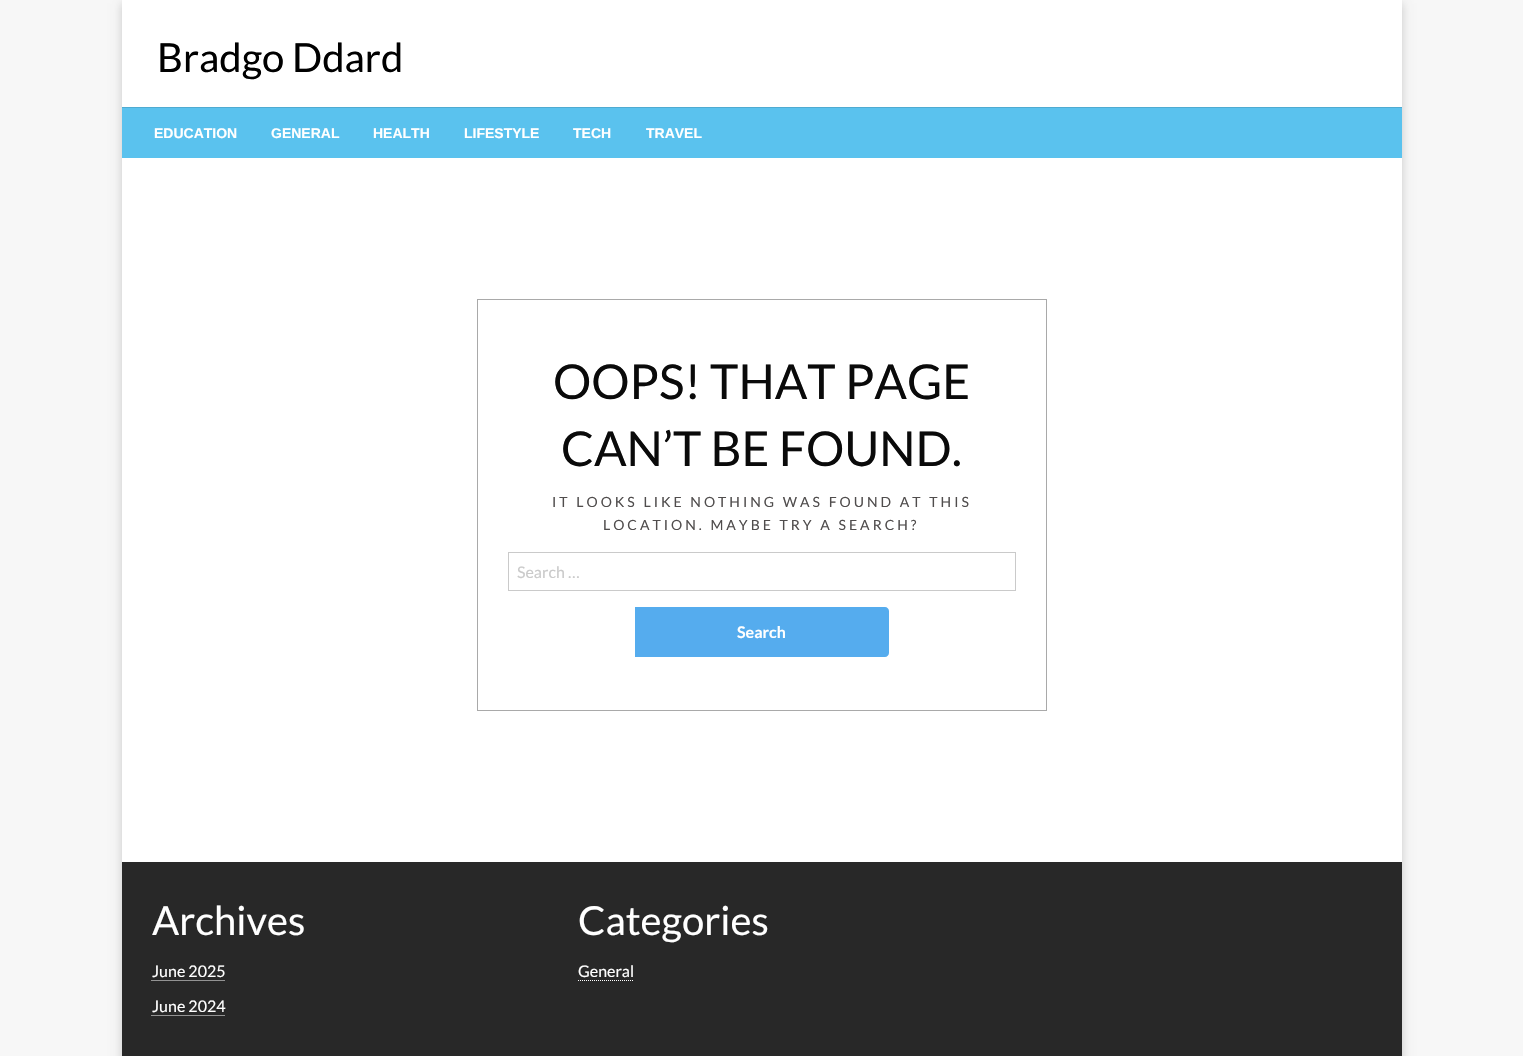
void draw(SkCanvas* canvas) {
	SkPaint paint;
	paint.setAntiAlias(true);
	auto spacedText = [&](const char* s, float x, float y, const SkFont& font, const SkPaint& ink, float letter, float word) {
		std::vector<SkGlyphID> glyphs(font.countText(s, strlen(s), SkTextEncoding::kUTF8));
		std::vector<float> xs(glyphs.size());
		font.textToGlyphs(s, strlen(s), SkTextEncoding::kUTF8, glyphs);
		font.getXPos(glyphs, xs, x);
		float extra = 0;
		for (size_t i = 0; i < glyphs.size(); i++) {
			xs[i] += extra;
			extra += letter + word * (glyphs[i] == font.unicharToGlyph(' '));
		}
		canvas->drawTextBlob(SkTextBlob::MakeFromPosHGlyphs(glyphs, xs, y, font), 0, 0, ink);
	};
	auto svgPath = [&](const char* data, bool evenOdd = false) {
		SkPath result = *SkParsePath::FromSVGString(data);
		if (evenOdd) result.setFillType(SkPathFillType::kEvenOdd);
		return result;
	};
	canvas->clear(0xfff7f7f7);
	paint.setColor(0x17000000);
	paint.setMaskFilter(SkMaskFilter::MakeBlur(kNormal_SkBlurStyle, 5));
	canvas->drawRect(SkRect::MakeXYWH(122, 3, 1280, 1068), paint);
	paint.setMaskFilter(nullptr);
	paint.setColor(0x1a000000);
	paint.setMaskFilter(SkMaskFilter::MakeBlur(kNormal_SkBlurStyle, 4));
	canvas->drawRect(SkRect::MakeXYWH(122, 4, 1280, 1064), paint);
	paint.setMaskFilter(nullptr);
	paint.setColor(0xffffffff);
	canvas->drawRect(SkRect::MakeXYWH(122, 0, 1280, 107), paint);
	SkFont f1(fontMgr->matchFamilyStyle("Lato", SkFontStyle::Normal()), 40);
	f1.setSubpixel(true);
	paint.setColor(0xff000000);
	canvas->drawString("Bradgo Ddard", 157, 72, f1, paint);
	paint.setColor(0xff5ac2ee);
	canvas->drawRect(SkRect::MakeXYWH(122, 108, 1280, 50), paint);
	paint.setColor(0xff4fabd1);
	canvas->drawRect(SkRect::MakeXYWH(122, 107, 1280, 1), paint);
	SkFont f2(fontMgr->matchFamilyStyle("Liberation Sans", SkFontStyle::Bold()), 14);
	f2.setSubpixel(true);
	paint.setColor(0xffffffff);
	canvas->drawString("EDUCATION", 154, 138, f2, paint);
	canvas->drawString("GENERAL", 271, 138, f2, paint);
	canvas->drawString("HEALTH", 373, 138, f2, paint);
	canvas->drawString("LIFESTYLE", 464, 138, f2, paint);
	canvas->drawString("TECH", 573, 138, f2, paint);
	canvas->drawString("TRAVEL", 646, 138, f2, paint);
	canvas->drawRect(SkRect::MakeXYWH(122, 158, 1280, 704), paint);
	paint.setStroke(true);
	paint.setStrokeWidth(1);
	paint.setColor(0xffa9a9a9);
	canvas->drawRect(SkRect::MakeXYWH(477.5, 299.5, 569, 411), paint);
	SkFont f3(fontMgr->matchFamilyStyle("Lato", SkFontStyle::Normal()), 48);
	f3.setSubpixel(true);
	paint.setStroke(false);
	paint.setColor(0xff0a0a0a);
	canvas->drawString("OOPS! THAT PAGE", 553, 399, f3, paint);
	canvas->drawString("CAN’T BE FOUND.", 561, 466, f3, paint);
	SkFont f4(fontMgr->matchFamilyStyle("Lato", SkFontStyle::Normal()), 14);
	f4.setSubpixel(true);
	paint.setColor(0xff504d4d);
	spacedText("IT LOOKS LIKE NOTHING WAS FOUND AT THIS", 552, 507, f4, paint, 3, 0);
	spacedText("LOCATION. MAYBE TRY A SEARCH?", 603, 530, f4, paint, 3, 0);
	paint.setStroke(true);
	paint.setColor(0xffcacaca);
	canvas->drawRect(SkRect::MakeXYWH(508.5, 552.5, 507, 38), paint);
	SkFont f5(fontMgr->matchFamilyStyle("Lato", SkFontStyle::Normal()), 16);
	f5.setSubpixel(true);
	paint.setStroke(false);
	canvas->drawString("Search …", 517, 578, f5, paint);
	paint.setColor(0xff55acee);
	canvas->drawPath(svgPath("M635 607H885C887 607 889 609 889 611V653C889 655 887 657 885 657H635Z"), paint);
	SkFont f6(fontMgr->matchFamilyStyle("Lato", SkFontStyle::Bold()), 16);
	f6.setSubpixel(true);
	paint.setColor(0xffffffff);
	canvas->drawString("Search", 737, 638, f6, paint);
	paint.setColor(0xff282828);
	canvas->drawRect(SkRect::MakeXYWH(122, 862, 1280, 194), paint);
	paint.setColor(0xffffffff);
	canvas->drawString("Archives", 152, 935, f1, paint);
	canvas->drawString("June 2025", 152, 977, f5, paint);
	paint.setStroke(true);
	paint.setPathEffect(SkDashPathEffect::Make({{1, 1}}, 0));
	canvas->drawPath(svgPath("M151.5 980.5H225"), paint);
	paint.setPathEffect(nullptr);
	paint.setStroke(false);
	canvas->drawString("June 2024", 152, 1012, f5, paint);
	paint.setStroke(true);
	paint.setPathEffect(SkDashPathEffect::Make({{1, 1}}, 0));
	canvas->drawPath(svgPath("M151.5 1015.5H225"), paint);
	paint.setPathEffect(nullptr);
	paint.setStroke(false);
	canvas->drawString("Categories", 578, 935, f1, paint);
	canvas->drawString("General", 578, 977, f5, paint);
	paint.setStroke(true);
	paint.setPathEffect(SkDashPathEffect::Make({{1, 1}}, 0));
	canvas->drawPath(svgPath("M578 980.5H634"), paint);
	paint.setPathEffect(nullptr);
}
